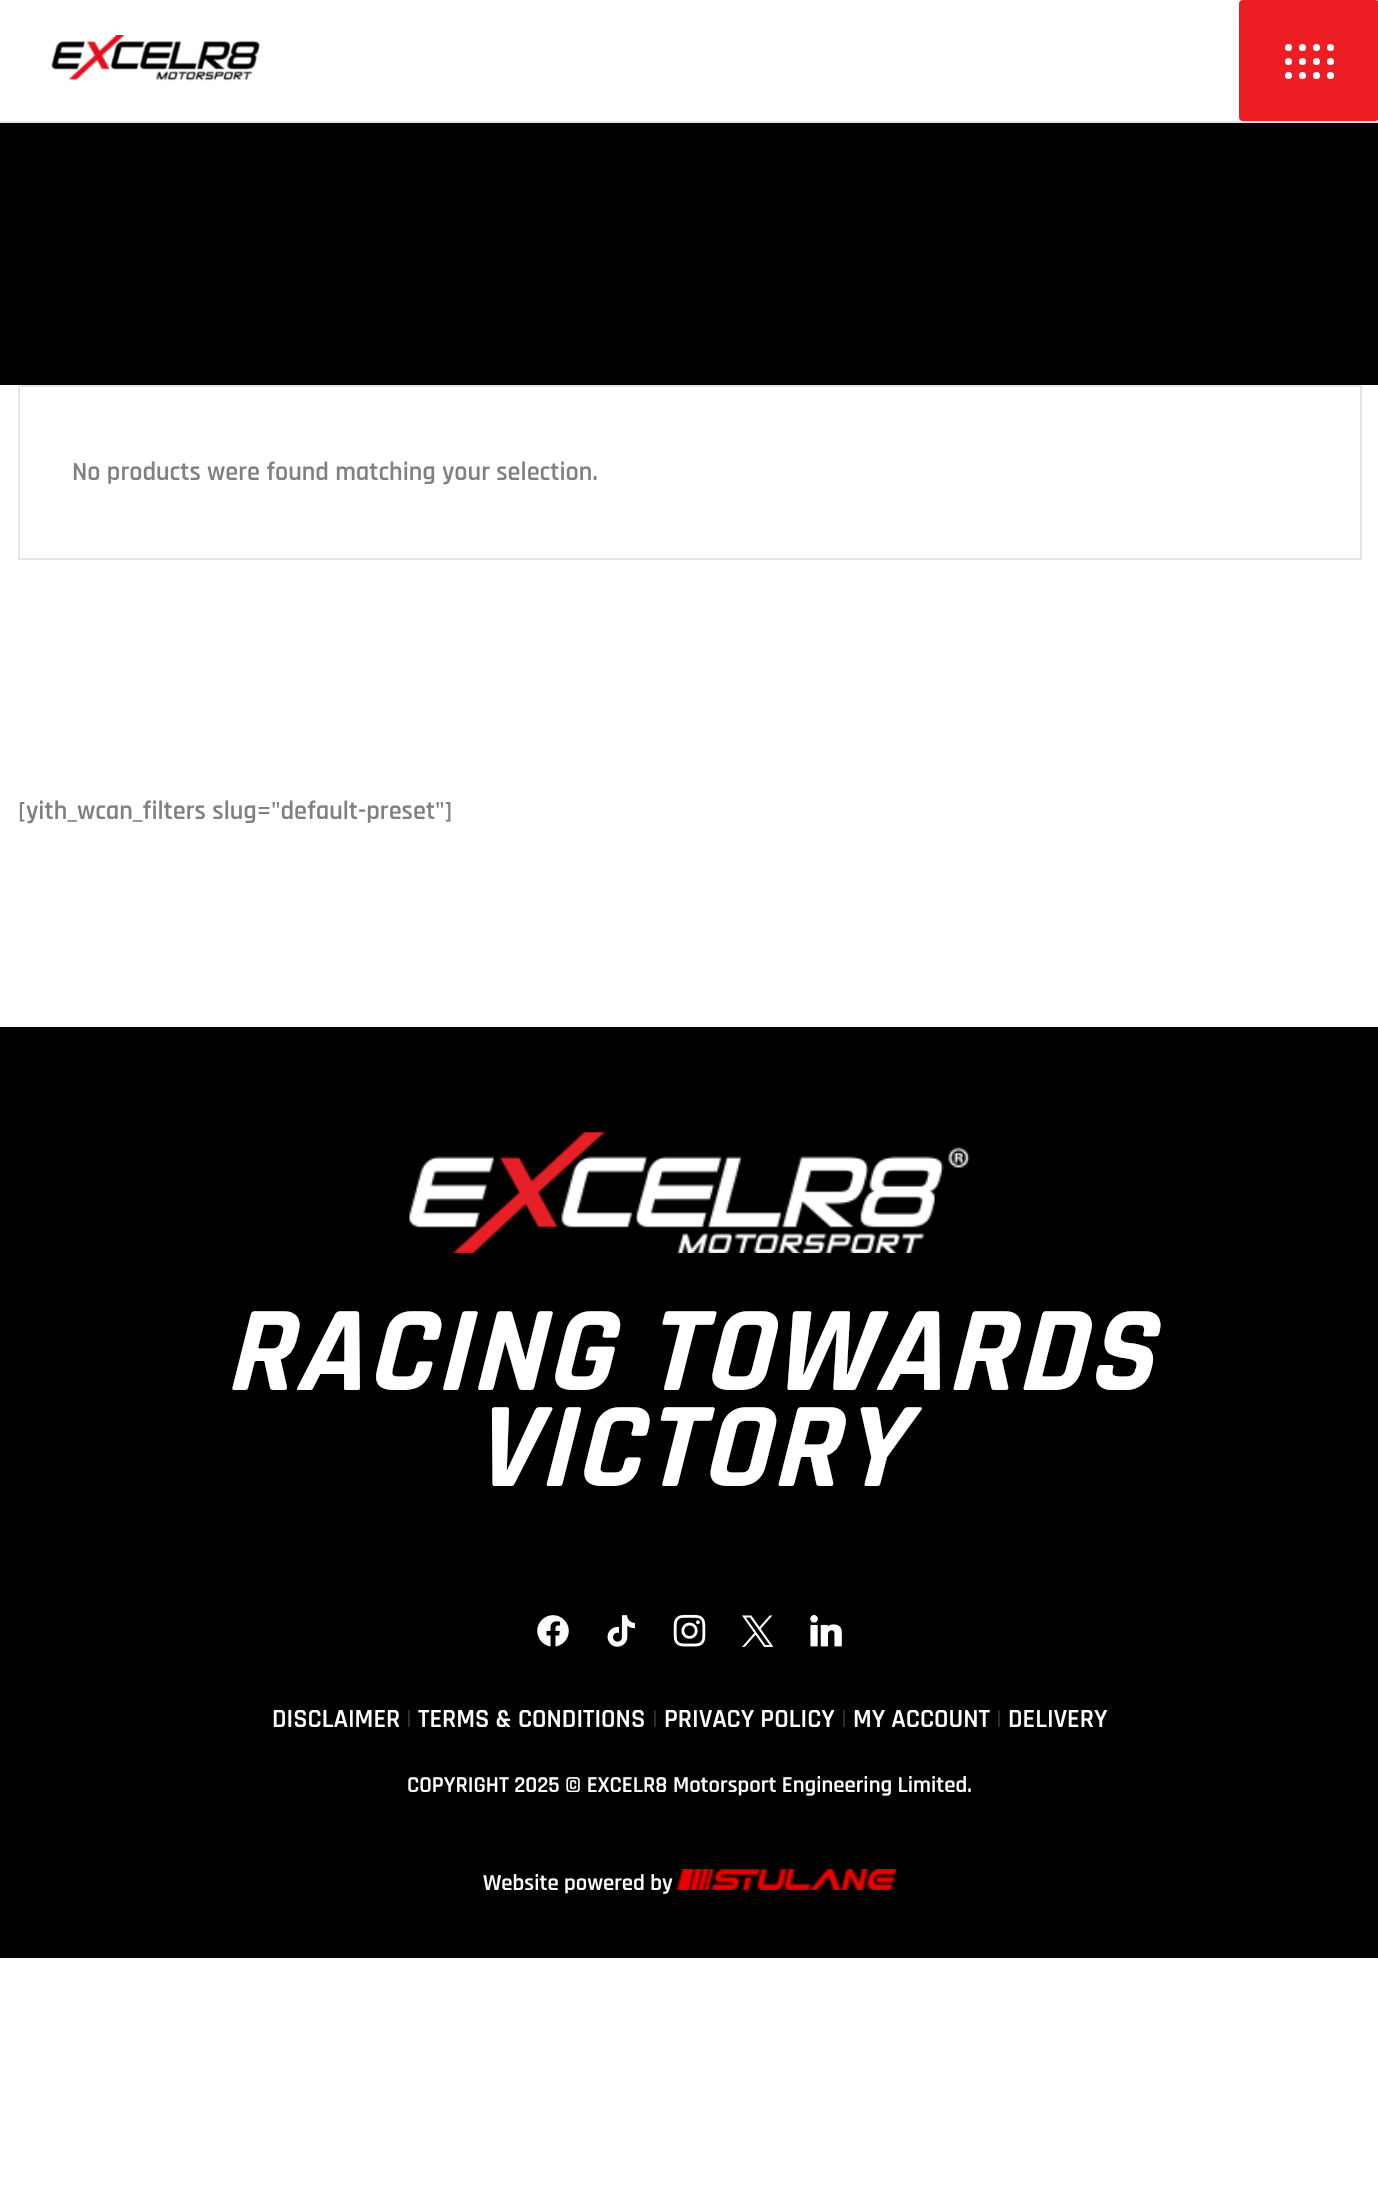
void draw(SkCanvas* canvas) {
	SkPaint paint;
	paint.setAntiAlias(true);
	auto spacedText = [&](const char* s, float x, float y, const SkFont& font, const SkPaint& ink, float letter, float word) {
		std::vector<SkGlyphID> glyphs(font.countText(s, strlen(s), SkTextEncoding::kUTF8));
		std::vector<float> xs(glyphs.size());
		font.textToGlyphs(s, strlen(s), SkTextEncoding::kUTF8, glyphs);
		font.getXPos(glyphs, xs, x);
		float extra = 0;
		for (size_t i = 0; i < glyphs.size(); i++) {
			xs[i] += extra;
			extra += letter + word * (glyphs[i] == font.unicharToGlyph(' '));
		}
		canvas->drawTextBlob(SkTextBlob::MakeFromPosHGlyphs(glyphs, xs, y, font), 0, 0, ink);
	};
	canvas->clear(0xffffffff);
	paint.setColor(0xffe5e5e5);
	canvas->drawRect(SkRect::MakeXYWH(0, 121, 1378, 2), paint);
	canvas->drawImageRect(SkImages::DeferredFromEncodedData(SkData::MakeFromFileName("img1.png")), SkRect::MakeXYWH(51, 35, 209, 46), SkSamplingOptions());
	paint.setColor(0xffed1d24);
	canvas->drawRoundRect(SkRect::MakeXYWH(1239, 0, 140, 121), 4, 4, paint);
	paint.setColor(0xffffffff);
	canvas->drawCircle(1288.5, 47.5, 3.5, paint);
	canvas->drawCircle(1302.5, 47.5, 3.5, paint);
	canvas->drawCircle(1316.5, 47.5, 3.5, paint);
	canvas->drawCircle(1330.5, 47.5, 3.5, paint);
	canvas->drawCircle(1288.5, 61.5, 3.5, paint);
	canvas->drawCircle(1302.5, 61.5, 3.5, paint);
	canvas->drawCircle(1316.5, 61.5, 3.5, paint);
	canvas->drawCircle(1330.5, 61.5, 3.5, paint);
	canvas->drawCircle(1288.5, 75.5, 3.5, paint);
	canvas->drawCircle(1302.5, 75.5, 3.5, paint);
	canvas->drawCircle(1316.5, 75.5, 3.5, paint);
	canvas->drawCircle(1330.5, 75.5, 3.5, paint);
	paint.setColor(0xff000000);
	canvas->drawRect(SkRect::MakeXYWH(0, 123, 1378, 262), paint);
	paint.setStroke(true);
	paint.setStrokeWidth(2);
	paint.setColor(0xffe5e5e5);
	canvas->drawRect(SkRect::MakeXYWH(19, 386, 1342, 173), paint);
	SkFont f1(fontMgr->matchFamilyStyle("Rajdhani", SkFontStyle(600, SkFontStyle::kNormal_Width, SkFontStyle::kUpright_Slant)), 26.25);
	f1.setSubpixel(true);
	paint.setStroke(false);
	paint.setColor(0xff808080);
	canvas->drawString("No products were found matching your selection.", 72, 480, f1, paint);
	canvas->drawString("[yith_wcan_filters slug=\"default-preset\"]", 18, 819, f1, paint);
	paint.setColor(0xff000000);
	canvas->drawRect(SkRect::MakeXYWH(0, 1027, 1378, 931), paint);
	canvas->drawImageRect(SkImages::DeferredFromEncodedData(SkData::MakeFromFileName("img2.png")), SkRect::MakeXYWH(409, 1132, 561, 121), SkSamplingOptions());
	SkFont f2(fontMgr->matchFamilyStyle("Rajdhani", SkFontStyle::BoldItalic()), 122.5);
	f2.setSubpixel(true);
	paint.setColor(0xffffffff);
	spacedText("RACING TOWARDS", 224, 1390, f2, paint, 3, 0);
	spacedText("VICTORY", 471, 1486, f2, paint, 3, 0);
	canvas->drawImageRect(SkImages::DeferredFromEncodedData(SkData::MakeFromFileName("img3.png")), SkRect::MakeXYWH(537, 1615, 32, 32), SkSamplingOptions());
	canvas->drawImageRect(SkImages::DeferredFromEncodedData(SkData::MakeFromFileName("img4.png")), SkRect::MakeXYWH(607, 1615, 28, 32), SkSamplingOptions());
	canvas->drawImageRect(SkImages::DeferredFromEncodedData(SkData::MakeFromFileName("img5.png")), SkRect::MakeXYWH(673, 1614, 33, 33), SkSamplingOptions());
	canvas->drawImageRect(SkImages::DeferredFromEncodedData(SkData::MakeFromFileName("img6.png")), SkRect::MakeXYWH(742, 1615, 32, 32), SkSamplingOptions());
	canvas->drawImageRect(SkImages::DeferredFromEncodedData(SkData::MakeFromFileName("img7.png")), SkRect::MakeXYWH(810, 1615, 32, 32), SkSamplingOptions());
	canvas->drawString("DISCLAIMER", 272, 1727, f1, paint);
	paint.setColor(0xff2d2d2d);
	canvas->drawString("|", 406, 1727, f1, paint);
	paint.setColor(0xffffffff);
	canvas->drawString("TERMS & CONDITIONS", 418, 1727, f1, paint);
	paint.setColor(0xff2d2d2d);
	canvas->drawString("|", 652, 1727, f1, paint);
	paint.setColor(0xffffffff);
	canvas->drawString("PRIVACY POLICY", 664, 1727, f1, paint);
	paint.setColor(0xff2d2d2d);
	canvas->drawString("|", 841, 1727, f1, paint);
	paint.setColor(0xffffffff);
	canvas->drawString("MY ACCOUNT", 853, 1727, f1, paint);
	paint.setColor(0xff2d2d2d);
	canvas->drawString("|", 996, 1727, f1, paint);
	paint.setColor(0xffffffff);
	canvas->drawString("DELIVERY", 1008, 1727, f1, paint);
	SkFont f3(fontMgr->matchFamilyStyle("Rajdhani", SkFontStyle(600, SkFontStyle::kNormal_Width, SkFontStyle::kUpright_Slant)), 22.75);
	f3.setSubpixel(true);
	canvas->drawString("COPYRIGHT 2025 © EXCELR8 Motorsport Engineering Limited.", 407, 1792, f3, paint);
	canvas->drawString("Website powered by", 483, 1890, f3, paint);
	canvas->drawImageRect(SkImages::DeferredFromEncodedData(SkData::MakeFromFileName("img8.png")), SkRect::MakeXYWH(677, 1869, 219, 21), SkSamplingOptions());
}
